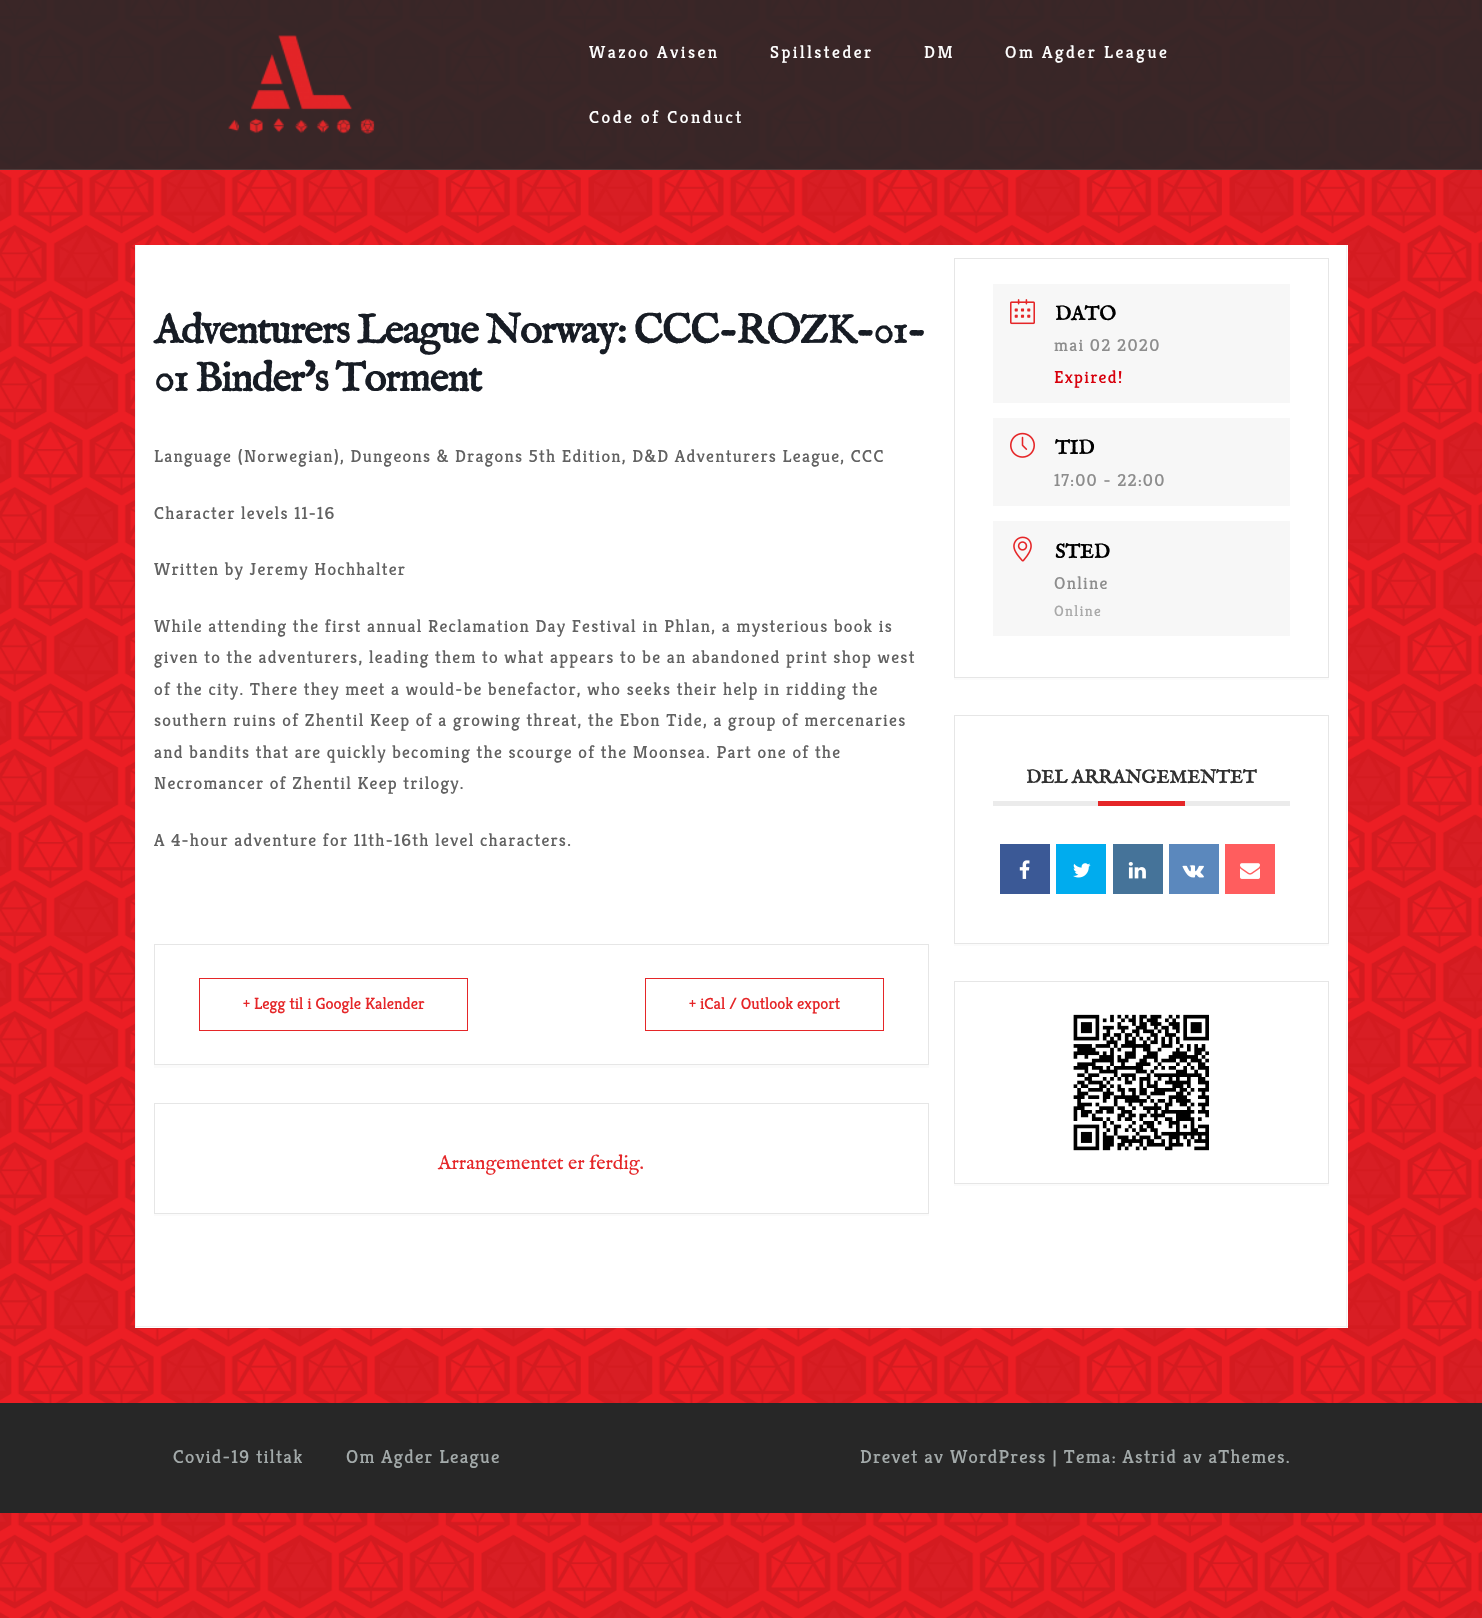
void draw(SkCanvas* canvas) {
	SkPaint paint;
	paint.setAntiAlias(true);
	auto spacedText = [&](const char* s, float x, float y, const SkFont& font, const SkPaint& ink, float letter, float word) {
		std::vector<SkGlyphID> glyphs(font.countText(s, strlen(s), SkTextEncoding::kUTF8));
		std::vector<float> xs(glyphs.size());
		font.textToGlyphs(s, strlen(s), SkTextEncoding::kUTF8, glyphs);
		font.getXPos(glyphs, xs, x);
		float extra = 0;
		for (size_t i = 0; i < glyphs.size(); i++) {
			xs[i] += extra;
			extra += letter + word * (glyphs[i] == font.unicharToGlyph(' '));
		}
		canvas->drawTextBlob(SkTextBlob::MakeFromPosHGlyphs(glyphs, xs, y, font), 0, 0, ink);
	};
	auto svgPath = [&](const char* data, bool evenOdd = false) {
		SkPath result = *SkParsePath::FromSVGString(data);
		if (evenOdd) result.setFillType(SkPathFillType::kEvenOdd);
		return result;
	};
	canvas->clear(0xffffffff);
	canvas->drawImageRect(SkImages::DeferredFromEncodedData(SkData::MakeFromFileName("img1.png")), SkRect::MakeXYWH(0, 0, 1482, 1618), SkSamplingOptions());
	paint.setColor(0xe6272727);
	canvas->drawRect(SkRect::MakeXYWH(0, 0, 1482, 169), paint);
	paint.setColor(0xff4d3c3c);
	canvas->drawRect(SkRect::MakeXYWH(0, 169, 1482, 1), paint);
	canvas->drawImageRect(SkImages::DeferredFromEncodedData(SkData::MakeFromFileName("img2.png")), SkRect::MakeXYWH(228, 35, 147, 99), SkSamplingOptions());
	SkFont f1(fontMgr->matchFamilyStyle("Kreon", SkFontStyle(300, SkFontStyle::kNormal_Width, SkFontStyle::kUpright_Slant)), 17.5);
	f1.setSubpixel(true);
	paint.setColor(0xffffffff);
	spacedText("Wazoo Avisen", 589, 58, f1, paint, 2.5, 0);
	spacedText("Spillsteder", 770, 58, f1, paint, 2.5, 0);
	spacedText("DM", 924, 58, f1, paint, 2.5, 0);
	spacedText("Om Agder League", 1005, 58, f1, paint, 2.5, 0);
	spacedText("Code of Conduct", 589, 123, f1, paint, 2.5, 0);
	canvas->drawRect(SkRect::MakeXYWH(136, 245, 1212, 1083), paint);
	paint.setColor(0xfff2f2f3);
	canvas->drawRect(SkRect::MakeXYWH(1346, 245, 1, 1083), paint);
	canvas->drawRect(SkRect::MakeXYWH(135, 1326, 1213, 1), paint);
	canvas->drawRect(SkRect::MakeXYWH(135, 245, 1, 1083), paint);
	SkFont f2(fontMgr->matchFamilyStyle("IM FELL English", SkFontStyle::Bold()), 41.25);
	f2.setSubpixel(true);
	paint.setColor(0xff171c24);
	spacedText("Adventurers League Norway: CCC-ROZK-01-", 154, 343, f2, paint, -1.25, 0);
	spacedText("01 Binder’s Torment", 154, 391, f2, paint, -1.25, 0);
	paint.setColor(0xff616161);
	spacedText("Language (Norwegian), Dungeons & Dragons 5th Edition, D&D Adventurers League, CCC", 154, 462, f1, paint, 1.25, 0);
	spacedText("Character levels 11-16", 154, 519, f1, paint, 1.25, 0);
	spacedText("Written by Jeremy Hochhalter", 154, 575, f1, paint, 1.25, 0);
	spacedText("While attending the first annual Reclamation Day Festival in Phlan, a mysterious book is", 154, 632, f1, paint, 1.25, 0);
	spacedText("given to the adventurers, leading them to what appears to be an abandoned print shop west", 154, 663, f1, paint, 1.25, 0);
	spacedText("of the city. There they meet a would-be benefactor, who seeks their help in ridding the", 154, 695, f1, paint, 1.25, 0);
	spacedText("southern ruins of Zhentil Keep of a growing threat, the Ebon Tide, a group of mercenaries", 154, 726, f1, paint, 1.25, 0);
	spacedText("and bandits that are quickly becoming the scourge of the Moonsea. Part one of the", 154, 758, f1, paint, 1.25, 0);
	spacedText("Necromancer of Zhentil Keep trilogy.", 154, 789, f1, paint, 1.25, 0);
	spacedText("A 4-hour adventure for 11th-16th level characters.", 154, 846, f1, paint, 1.25, 0);
	paint.setColor(0xfffbfbfb);
	canvas->drawPath(svgPath("M154 1065V1068H929V946V1065Z"), paint);
	paint.setStroke(true);
	paint.setStrokeWidth(1);
	paint.setColor(0xffe6e6e6);
	canvas->drawRect(SkRect::MakeXYWH(154.5, 944.5, 774, 120), paint);
	paint.setColor(0xffe52628);
	canvas->drawRect(SkRect::MakeXYWH(199.5, 978.5, 268, 52), paint);
	SkFont f3(fontMgr->matchFamilyStyle("Kreon", SkFontStyle(300, SkFontStyle::kNormal_Width, SkFontStyle::kUpright_Slant)), 16.25);
	f3.setSubpixel(true);
	paint.setStroke(false);
	canvas->drawString("+ Legg til i Google Kalender", 243, 1009, f3, paint);
	paint.setStroke(true);
	canvas->drawRect(SkRect::MakeXYWH(645.5, 978.5, 238, 52), paint);
	paint.setStroke(false);
	canvas->drawString("+ iCal / Outlook export", 689, 1009, f3, paint);
	paint.setColor(0xfffbfbfb);
	canvas->drawPath(svgPath("M154 1214V1216H929V1105V1214Z"), paint);
	paint.setStroke(true);
	paint.setColor(0xffe6e6e6);
	canvas->drawRect(SkRect::MakeXYWH(154.5, 1103.5, 774, 110), paint);
	SkFont f4(fontMgr->matchFamilyStyle("IM FELL English", SkFontStyle::Normal()), 20);
	f4.setSubpixel(true);
	paint.setStroke(false);
	paint.setColor(0xffe52628);
	canvas->drawString("Arrangementet er ferdig.", 438, 1169, f4, paint);
	paint.setColor(0xfffbfbfb);
	canvas->drawPath(svgPath("M954 678V680H1329V260V678Z"), paint);
	paint.setStroke(true);
	paint.setColor(0xffe6e6e6);
	canvas->drawRect(SkRect::MakeXYWH(954.5, 258.5, 374, 419), paint);
	paint.setStroke(false);
	paint.setColor(0xfff7f7f7);
	canvas->drawRect(SkRect::MakeXYWH(993, 284, 297, 119), paint);
	canvas->drawImageRect(SkImages::DeferredFromEncodedData(SkData::MakeFromFileName("img3.png")), SkRect::MakeXYWH(1010, 299, 25, 26), SkSamplingOptions());
	SkFont f5(fontMgr->matchFamilyStyle("IM FELL English", SkFontStyle::Bold()), 20);
	f5.setSubpixel(true);
	paint.setColor(0xff000000);
	canvas->drawString("DATO", 1055, 320, f5, paint);
	paint.setColor(0xff8d8d8d);
	spacedText("mai 02 2020", 1054, 351, f1, paint, 1.25, 0);
	paint.setColor(0xffd8000c);
	spacedText("Expired!", 1054, 383, f1, paint, 1.25, 0);
	paint.setColor(0xfff7f7f7);
	canvas->drawRect(SkRect::MakeXYWH(993, 418, 297, 88), paint);
	canvas->drawImageRect(SkImages::DeferredFromEncodedData(SkData::MakeFromFileName("img4.png")), SkRect::MakeXYWH(1010, 432, 25, 26), SkSamplingOptions());
	paint.setColor(0xff000000);
	canvas->drawString("TID", 1055, 454, f5, paint);
	paint.setColor(0xff8d8d8d);
	spacedText("17:00 - 22:00", 1054, 486, f1, paint, 1.25, 0);
	paint.setColor(0xfff7f7f7);
	canvas->drawRect(SkRect::MakeXYWH(993, 521, 297, 115), paint);
	canvas->drawImageRect(SkImages::DeferredFromEncodedData(SkData::MakeFromFileName("img5.png")), SkRect::MakeXYWH(1013, 536, 19, 26), SkSamplingOptions());
	paint.setColor(0xff000000);
	canvas->drawString("STED", 1055, 558, f5, paint);
	paint.setColor(0xff8d8d8d);
	spacedText("Online", 1054, 589, f1, paint, 1.25, 0);
	SkFont f6(fontMgr->matchFamilyStyle("Kreon", SkFontStyle(300, SkFontStyle::kNormal_Width, SkFontStyle::kUpright_Slant)), 15);
	f6.setSubpixel(true);
	paint.setColor(0xffa9a9a9);
	spacedText("Online", 1054, 616, f6, paint, 1.25, 0);
	paint.setColor(0xfffbfbfb);
	canvas->drawPath(svgPath("M954 944V946H1329V718V944Z"), paint);
	paint.setStroke(true);
	paint.setColor(0xffe6e6e6);
	canvas->drawRect(SkRect::MakeXYWH(954.5, 715.5, 374, 228), paint);
	paint.setStroke(false);
	paint.setColor(0xffebebeb);
	canvas->drawRect(SkRect::MakeXYWH(993, 801, 297, 5), paint);
	SkFont f7(fontMgr->matchFamilyStyle("IM FELL English", SkFontStyle::Bold()), 18.75);
	f7.setSubpixel(true);
	paint.setColor(0xff313131);
	canvas->drawString("DEL ARRANGEMENTET", 1026, 783, f7, paint);
	paint.setColor(0xffe52628);
	canvas->drawRect(SkRect::MakeXYWH(1098, 801, 87, 5), paint);
	paint.setColor(0xff3b5996);
	canvas->drawRect(SkRect::MakeXYWH(1000, 844, 50, 50), paint);
	canvas->drawImageRect(SkImages::DeferredFromEncodedData(SkData::MakeFromFileName("img6.png")), SkRect::MakeXYWH(1019, 860, 11, 19), SkSamplingOptions());
	paint.setColor(0xff00acee);
	canvas->drawRect(SkRect::MakeXYWH(1056, 844, 50, 50), paint);
	canvas->drawImageRect(SkImages::DeferredFromEncodedData(SkData::MakeFromFileName("img7.png")), SkRect::MakeXYWH(1073, 863, 18, 15), SkSamplingOptions());
	paint.setColor(0xff457399);
	canvas->drawRect(SkRect::MakeXYWH(1113, 844, 50, 50), paint);
	canvas->drawImageRect(SkImages::DeferredFromEncodedData(SkData::MakeFromFileName("img8.png")), SkRect::MakeXYWH(1128, 862, 18, 17), SkSamplingOptions());
	paint.setColor(0xff5b88bd);
	canvas->drawRect(SkRect::MakeXYWH(1169, 844, 50, 50), paint);
	canvas->drawImageRect(SkImages::DeferredFromEncodedData(SkData::MakeFromFileName("img9.png")), SkRect::MakeXYWH(1182, 865, 22, 13), SkSamplingOptions());
	paint.setColor(0xffff5d5e);
	canvas->drawRect(SkRect::MakeXYWH(1225, 844, 50, 50), paint);
	canvas->drawImageRect(SkImages::DeferredFromEncodedData(SkData::MakeFromFileName("img10.png")), SkRect::MakeXYWH(1240, 863, 20, 16), SkSamplingOptions());
	paint.setColor(0xfffbfbfb);
	canvas->drawPath(svgPath("M954 1184V1186H1329V984V1184Z"), paint);
	paint.setStroke(true);
	paint.setColor(0xffe6e6e6);
	canvas->drawRect(SkRect::MakeXYWH(954.5, 981.5, 374, 202), paint);
	canvas->drawImageRect(SkImages::DeferredFromEncodedData(SkData::MakeFromFileName("img11.png")), SkRect::MakeXYWH(1073, 1014, 136, 137), SkSamplingOptions());
	paint.setStroke(false);
	paint.setColor(0xff272727);
	canvas->drawRect(SkRect::MakeXYWH(0, 1403, 1482, 110), paint);
	SkFont f8(fontMgr->matchFamilyStyle("Kreon", SkFontStyle(300, SkFontStyle::kNormal_Width, SkFontStyle::kUpright_Slant)), 18.75);
	f8.setSubpixel(true);
	paint.setColor(0xffa3aaaa);
	spacedText("Covid-19 tiltak", 173, 1463, f8, paint, 1.25, 0);
	spacedText("Om Agder League", 346, 1463, f8, paint, 1.25, 0);
	spacedText("Drevet av WordPress | Tema: Astrid av aThemes.", 860, 1463, f8, paint, 1.25, 0);
}
